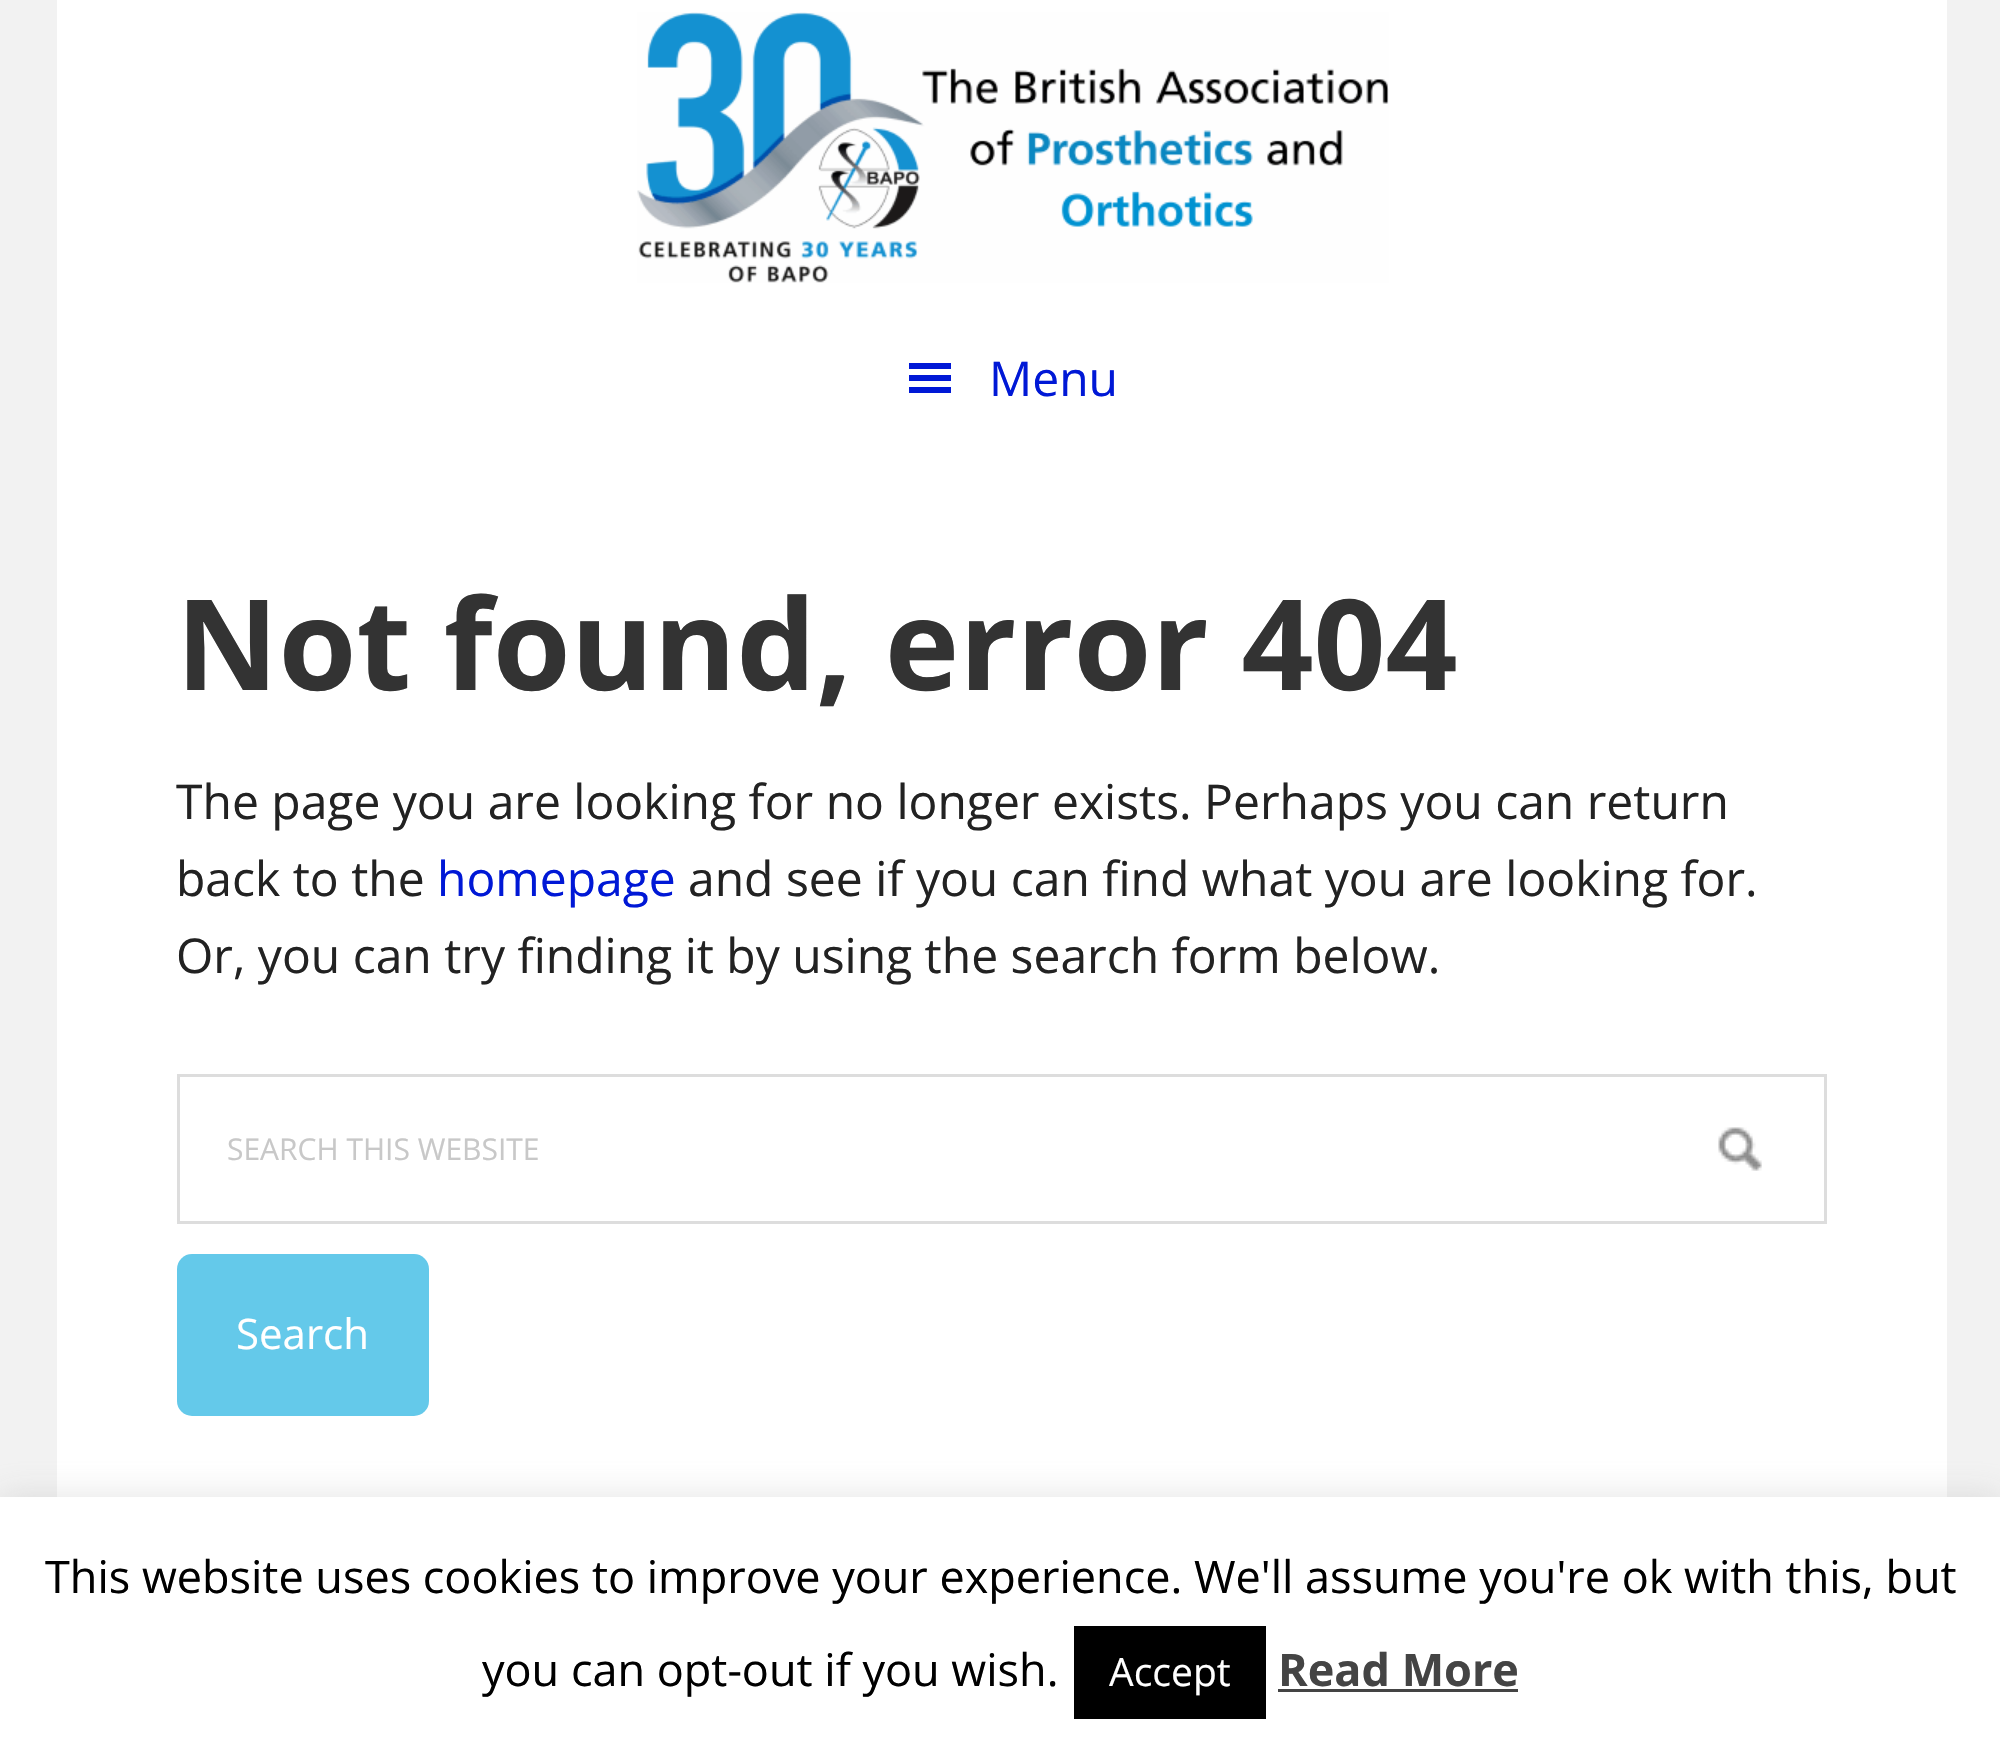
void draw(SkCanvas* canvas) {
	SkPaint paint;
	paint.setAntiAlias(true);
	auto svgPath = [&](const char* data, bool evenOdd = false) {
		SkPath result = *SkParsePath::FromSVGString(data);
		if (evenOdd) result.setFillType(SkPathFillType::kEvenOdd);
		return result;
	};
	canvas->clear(0xfff2f2f2);
	paint.setColor(0xffffffff);
	canvas->drawRect(SkRect::MakeXYWH(57, 0, 1890, 1497), paint);
	canvas->drawImageRect(SkImages::DeferredFromEncodedData(SkData::MakeFromFileName("img1.png")), SkRect::MakeXYWH(637, 12, 752, 271), SkSamplingOptions());
	paint.setColor(0xff0018d6);
	canvas->drawPath(svgPath("M909 393H951V387H909ZM909 363V369H951V363ZM909 381H951V375H909Z"), paint);
	SkFont f1(fontMgr->matchFamilyStyle("Open Sans", SkFontStyle::Normal()), 48);
	f1.setSubpixel(true);
	canvas->drawString("Menu", 989, 396, f1, paint);
	SkFont f2(fontMgr->matchFamilyStyle("Open Sans", SkFontStyle::Bold()), 126);
	f2.setSubpixel(true);
	paint.setColor(0xff333333);
	canvas->drawString("Not found, error 404", 176, 690, f2, paint);
	paint.setColor(0xff222222);
	canvas->drawString("The page you are looking for no longer exists. Perhaps you can return", 176, 819, f1, paint);
	canvas->drawString("back to the", 176, 896, f1, paint);
	paint.setColor(0xff0018d6);
	canvas->drawString("homepage", 437, 896, f1, paint);
	paint.setColor(0xff222222);
	canvas->drawString("and see if you can find what you are looking for.", 688, 896, f1, paint);
	canvas->drawString("Or, you can try finding it by using the search form below.", 176, 973, f1, paint);
	canvas->drawImageRect(SkImages::DeferredFromEncodedData(SkData::MakeFromFileName("img2.png")), SkRect::MakeXYWH(1718, 1127, 44, 44), SkSamplingOptions());
	paint.setStroke(true);
	paint.setStrokeWidth(3);
	paint.setColor(0xffdddddd);
	canvas->drawRect(SkRect::MakeXYWH(178.5, 1075.5, 1647, 147), paint);
	SkFont f3(fontMgr->matchFamilyStyle("Open Sans", SkFontStyle::Normal()), 30);
	f3.setSubpixel(true);
	paint.setStroke(false);
	paint.setColor(0xffc8c8c8);
	canvas->drawString("SEARCH THIS WEBSITE", 227, 1160, f3, paint);
	paint.setColor(0xff64c9ea);
	canvas->drawRoundRect(SkRect::MakeXYWH(177, 1254, 252, 162), 15, 15, paint);
	SkFont f4(fontMgr->matchFamilyStyle("Open Sans", SkFontStyle::Normal()), 42);
	f4.setSubpixel(true);
	paint.setColor(0xffffffff);
	canvas->drawString("Search", 236, 1349, f4, paint);
	paint.setColor(0x4dacabab);
	paint.setMaskFilter(SkMaskFilter::MakeBlur(kNormal_SkBlurStyle, 15));
	canvas->drawRect(SkRect::MakeXYWH(0, 1494, 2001, 258), paint);
	paint.setMaskFilter(nullptr);
	paint.setColor(0xffffffff);
	canvas->drawRect(SkRect::MakeXYWH(0, 1497, 2000, 257), paint);
	SkFont f5(fontMgr->matchFamilyStyle("Open Sans", SkFontStyle::Normal()), 45);
	f5.setSubpixel(true);
	paint.setColor(0xff000000);
	canvas->drawString("This website uses cookies to improve your experience. We'll assume you're ok with this, but", 45, 1593, f5, paint);
	canvas->drawString("you can opt-out if you wish.", 482, 1686, f5, paint);
	canvas->drawRect(SkRect::MakeXYWH(1074, 1626, 192, 93), paint);
	SkFont f6(fontMgr->matchFamilyStyle("Open Sans", SkFontStyle::Normal()), 39);
	f6.setSubpixel(true);
	paint.setColor(0xffffffff);
	canvas->drawString("Accept", 1109, 1686, f6, paint);
	SkFont f7(fontMgr->matchFamilyStyle("Open Sans", SkFontStyle::Bold()), 45);
	f7.setSubpixel(true);
	paint.setColor(0xff444444);
	canvas->drawString("Read More", 1278, 1686, f7, paint);
	canvas->drawRect(SkRect::MakeXYWH(1278, 1689, 240, 3), paint);
}
